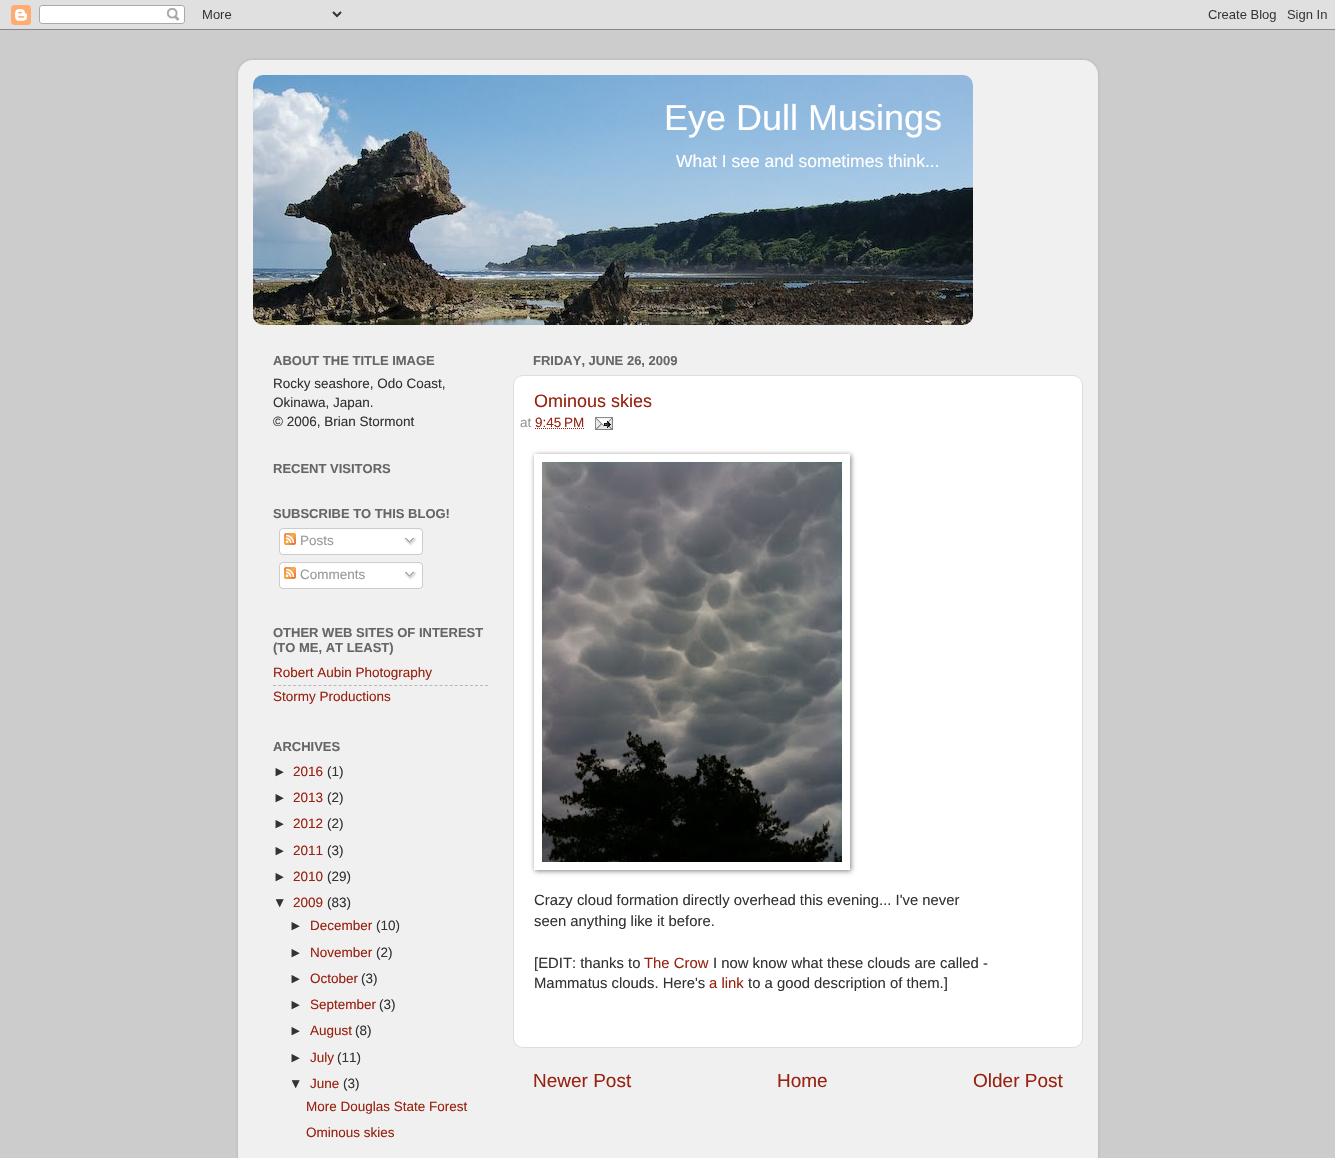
void draw(SkCanvas* canvas) {
	SkPaint paint;
	paint.setAntiAlias(true);
	auto svgPath = [&](const char* data, bool evenOdd = false) {
		SkPath result = *SkParsePath::FromSVGString(data);
		if (evenOdd) result.setFillType(SkPathFillType::kEvenOdd);
		return result;
	};
	canvas->clear(0xffcccccc);
	canvas->drawImageRect(SkImages::DeferredFromEncodedData(SkData::MakeFromFileName("img1.png")), SkRect::MakeXYWH(0, 0, 1335, 30), SkSamplingOptions());
	canvas->save();
	canvas->clipPath(svgPath("M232 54H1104V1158H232ZM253 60H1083C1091.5 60 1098 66.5 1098 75V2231C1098 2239.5 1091.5 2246 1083 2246H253C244.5 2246 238 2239.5 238 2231V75C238 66.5 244.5 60 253 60Z", true), true);
	paint.setColor(0x26000000);
	paint.setMaskFilter(SkMaskFilter::MakeBlur(kNormal_SkBlurStyle, 1.5));
	canvas->drawRoundRect(SkRect::MakeXYWH(238, 60, 860, 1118), 15, 15, paint);
	paint.setMaskFilter(nullptr);
	canvas->restore();
	canvas->drawImageRect(SkImages::DeferredFromEncodedData(SkData::MakeFromFileName("img2.png")), SkRect::MakeXYWH(238, 60, 860, 1098), SkSamplingOptions());
	canvas->drawImageRect(SkImages::DeferredFromEncodedData(SkData::MakeFromFileName("img3.png")), SkRect::MakeXYWH(253, 75, 720, 250), SkSamplingOptions());
	SkFont f1(fontMgr->matchFamilyStyle("Liberation Sans", SkFontStyle::Normal()), 36);
	f1.setSubpixel(true);
	paint.setColor(0xffffffff);
	canvas->drawString("Eye Dull Musings", 664, 130, f1, paint);
	SkFont f2(fontMgr->matchFamilyStyle("Liberation Sans", SkFontStyle::Normal()), 17.5);
	f2.setSubpixel(true);
	canvas->drawString("What I see and sometimes think...", 676, 167, f2, paint);
	SkFont f3(fontMgr->matchFamilyStyle("Liberation Sans", SkFontStyle::Bold()), 13);
	f3.setSubpixel(true);
	paint.setColor(0xff666666);
	canvas->drawString("ABOUT THE TITLE IMAGE", 273, 365, f3, paint);
	SkFont f4(fontMgr->matchFamilyStyle("Liberation Sans", SkFontStyle::Normal()), 13.5);
	f4.setSubpixel(true);
	paint.setColor(0xff333333);
	canvas->drawString("Rocky seashore, Odo Coast,", 273, 388, f4, paint);
	canvas->drawString("Okinawa, Japan.", 273, 407, f4, paint);
	canvas->drawString("© 2006, Brian Stormont", 273, 426, f4, paint);
	paint.setColor(0xff666666);
	canvas->drawString("RECENT VISITORS", 273, 473, f3, paint);
	canvas->drawString("SUBSCRIBE TO THIS BLOG!", 273, 518, f3, paint);
	canvas->drawImageRect(SkImages::DeferredFromEncodedData(SkData::MakeFromFileName("img4.png")), SkRect::MakeXYWH(279, 528, 144, 24), SkSamplingOptions());
	canvas->drawImageRect(SkImages::DeferredFromEncodedData(SkData::MakeFromFileName("img5.png")), SkRect::MakeXYWH(284, 533, 12, 12), SkSamplingOptions());
	paint.setColor(0xff999999);
	canvas->drawString("Posts", 300, 545, f4, paint);
	canvas->drawImageRect(SkImages::DeferredFromEncodedData(SkData::MakeFromFileName("img6.png")), SkRect::MakeXYWH(404, 537, 13, 9), SkSamplingOptions());
	canvas->drawImageRect(SkImages::DeferredFromEncodedData(SkData::MakeFromFileName("img7.png")), SkRect::MakeXYWH(279, 552, 144, 3), SkSamplingOptions());
	canvas->drawImageRect(SkImages::DeferredFromEncodedData(SkData::MakeFromFileName("img4.png")), SkRect::MakeXYWH(279, 562, 144, 24), SkSamplingOptions());
	canvas->drawImageRect(SkImages::DeferredFromEncodedData(SkData::MakeFromFileName("img5.png")), SkRect::MakeXYWH(284, 567, 12, 12), SkSamplingOptions());
	canvas->drawString("Comments", 300, 579, f4, paint);
	canvas->drawImageRect(SkImages::DeferredFromEncodedData(SkData::MakeFromFileName("img6.png")), SkRect::MakeXYWH(404, 571, 13, 9), SkSamplingOptions());
	canvas->drawImageRect(SkImages::DeferredFromEncodedData(SkData::MakeFromFileName("img7.png")), SkRect::MakeXYWH(279, 586, 144, 3), SkSamplingOptions());
	paint.setColor(0xff666666);
	canvas->drawString("OTHER WEB SITES OF INTEREST", 273, 637, f3, paint);
	canvas->drawString("(TO ME, AT LEAST)", 273, 652, f3, paint);
	paint.setColor(0xff992211);
	canvas->drawString("Robert Aubin Photography", 273, 677, f4, paint);
	paint.setStroke(true);
	paint.setStrokeWidth(1);
	paint.setColor(0xffb8b8b8);
	paint.setPathEffect(SkDashPathEffect::Make({{3, 2.05f}}, 0));
	canvas->drawPath(svgPath("M273 685.5H488"), paint);
	paint.setPathEffect(nullptr);
	paint.setStroke(false);
	paint.setColor(0xff992211);
	canvas->drawString("Stormy Productions", 273, 701, f4, paint);
	paint.setColor(0xff666666);
	canvas->drawString("ARCHIVES", 273, 751, f3, paint);
	paint.setColor(0xff333333);
	canvas->drawString("►", 273, 776, f4, paint);
	paint.setColor(0xff992211);
	canvas->drawString("2016", 293, 776, f4, paint);
	paint.setColor(0xff333333);
	canvas->drawString("(1)", 327, 776, f4, paint);
	canvas->drawString("►", 273, 802, f4, paint);
	paint.setColor(0xff992211);
	canvas->drawString("2013", 293, 802, f4, paint);
	paint.setColor(0xff333333);
	canvas->drawString("(2)", 327, 802, f4, paint);
	canvas->drawString("►", 273, 828, f4, paint);
	paint.setColor(0xff992211);
	canvas->drawString("2012", 293, 828, f4, paint);
	paint.setColor(0xff333333);
	canvas->drawString("(2)", 327, 828, f4, paint);
	canvas->drawString("►", 273, 855, f4, paint);
	paint.setColor(0xff992211);
	canvas->drawString("2011", 293, 855, f4, paint);
	paint.setColor(0xff333333);
	canvas->drawString("(3)", 327, 855, f4, paint);
	canvas->drawString("►", 273, 881, f4, paint);
	paint.setColor(0xff992211);
	canvas->drawString("2010", 293, 881, f4, paint);
	paint.setColor(0xff333333);
	canvas->drawString("(29)", 327, 881, f4, paint);
	canvas->drawString("▼", 273, 907, f4, paint);
	paint.setColor(0xff992211);
	canvas->drawString("2009", 293, 907, f4, paint);
	paint.setColor(0xff333333);
	canvas->drawString("(83)", 327, 907, f4, paint);
	canvas->drawString("►", 289, 930, f4, paint);
	paint.setColor(0xff992211);
	canvas->drawString("December", 310, 930, f4, paint);
	paint.setColor(0xff333333);
	canvas->drawString("(10)", 376, 930, f4, paint);
	canvas->drawString("►", 289, 957, f4, paint);
	paint.setColor(0xff992211);
	canvas->drawString("November", 310, 957, f4, paint);
	paint.setColor(0xff333333);
	canvas->drawString("(2)", 376, 957, f4, paint);
	canvas->drawString("►", 289, 983, f4, paint);
	paint.setColor(0xff992211);
	canvas->drawString("October", 310, 983, f4, paint);
	paint.setColor(0xff333333);
	canvas->drawString("(3)", 361, 983, f4, paint);
	canvas->drawString("►", 289, 1009, f4, paint);
	paint.setColor(0xff992211);
	canvas->drawString("September", 310, 1009, f4, paint);
	paint.setColor(0xff333333);
	canvas->drawString("(3)", 379, 1009, f4, paint);
	canvas->drawString("►", 289, 1035, f4, paint);
	paint.setColor(0xff992211);
	canvas->drawString("August", 310, 1035, f4, paint);
	paint.setColor(0xff333333);
	canvas->drawString("(8)", 355, 1035, f4, paint);
	canvas->drawString("►", 289, 1062, f4, paint);
	paint.setColor(0xff992211);
	canvas->drawString("July", 310, 1062, f4, paint);
	paint.setColor(0xff333333);
	canvas->drawString("(11)", 337, 1062, f4, paint);
	canvas->drawString("▼", 289, 1088, f4, paint);
	paint.setColor(0xff992211);
	canvas->drawString("June", 310, 1088, f4, paint);
	paint.setColor(0xff333333);
	canvas->drawString("(3)", 343, 1088, f4, paint);
	paint.setColor(0xff992211);
	canvas->drawString("More Douglas State Forest", 306, 1111, f4, paint);
	canvas->drawString("Ominous skies", 306, 1137, f4, paint);
	paint.setColor(0xff666666);
	canvas->drawString("FRIDAY, JUNE 26, 2009", 533, 365, f3, paint);
	paint.setColor(0xffffffff);
	canvas->drawRoundRect(SkRect::MakeXYWH(513.5, 375.5, 569, 672), 9.5, 9.5, paint);
	paint.setStroke(true);
	paint.setColor(0xffdddddd);
	canvas->drawRoundRect(SkRect::MakeXYWH(513.5, 375.5, 569, 672), 9.5, 9.5, paint);
	SkFont f5(fontMgr->matchFamilyStyle("Liberation Sans", SkFontStyle::Normal()), 18);
	f5.setSubpixel(true);
	paint.setStroke(false);
	paint.setColor(0xff992211);
	canvas->drawString("Ominous skies", 534, 407, f5, paint);
	paint.setColor(0xff999999);
	canvas->drawString("at", 520, 427, f4, paint);
	paint.setColor(0xff992211);
	canvas->drawString("9:45 PM", 535, 427, f4, paint);
	paint.setStroke(true);
	paint.setPathEffect(SkDashPathEffect::Make({{1, 1}}, 0));
	canvas->drawPath(svgPath("M535 428.5H584"), paint);
	paint.setPathEffect(nullptr);
	canvas->drawImageRect(SkImages::DeferredFromEncodedData(SkData::MakeFromFileName("img8.png")), SkRect::MakeXYWH(595, 417, 18, 13), SkSamplingOptions());
	canvas->save();
	canvas->clipPath(svgPath("M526 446H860V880H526ZM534 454H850V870H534Z", true), true);
	paint.setStroke(false);
	paint.setColor(0x80000000);
	paint.setMaskFilter(SkMaskFilter::MakeBlur(kNormal_SkBlurStyle, 2.5));
	canvas->drawRect(SkRect::MakeXYWH(535, 455, 316, 416), paint);
	paint.setMaskFilter(nullptr);
	canvas->restore();
	canvas->drawImageRect(SkImages::DeferredFromEncodedData(SkData::MakeFromFileName("img9.png")), SkRect::MakeXYWH(542, 462, 300, 400), SkSamplingOptions());
	SkFont f6(fontMgr->matchFamilyStyle("Liberation Sans", SkFontStyle::Normal()), 14.85);
	f6.setSubpixel(true);
	paint.setColor(0xff333333);
	canvas->drawString("Crazy cloud formation directly overhead this evening... I've never", 534, 905, f6, paint);
	canvas->drawString("seen anything like it before.", 534, 926, f6, paint);
	canvas->drawString("[EDIT: thanks to", 534, 968, f6, paint);
	paint.setColor(0xff992211);
	canvas->drawString("The Crow", 644, 968, f6, paint);
	paint.setColor(0xff333333);
	canvas->drawString("I now know what these clouds are called -", 713, 968, f6, paint);
	canvas->drawString("Mammatus clouds. Here's", 534, 988, f6, paint);
	paint.setColor(0xff992211);
	canvas->drawString("a link", 709, 988, f6, paint);
	paint.setColor(0xff333333);
	canvas->drawString("to a good description of them.]", 748, 988, f6, paint);
	SkFont f7(fontMgr->matchFamilyStyle("Liberation Sans", SkFontStyle::Normal()), 19);
	f7.setSubpixel(true);
	paint.setColor(0xff992211);
	canvas->drawString("Newer Post", 533, 1087, f7, paint);
	canvas->drawString("Home", 777, 1087, f7, paint);
	canvas->drawString("Older Post", 973, 1087, f7, paint);
}
